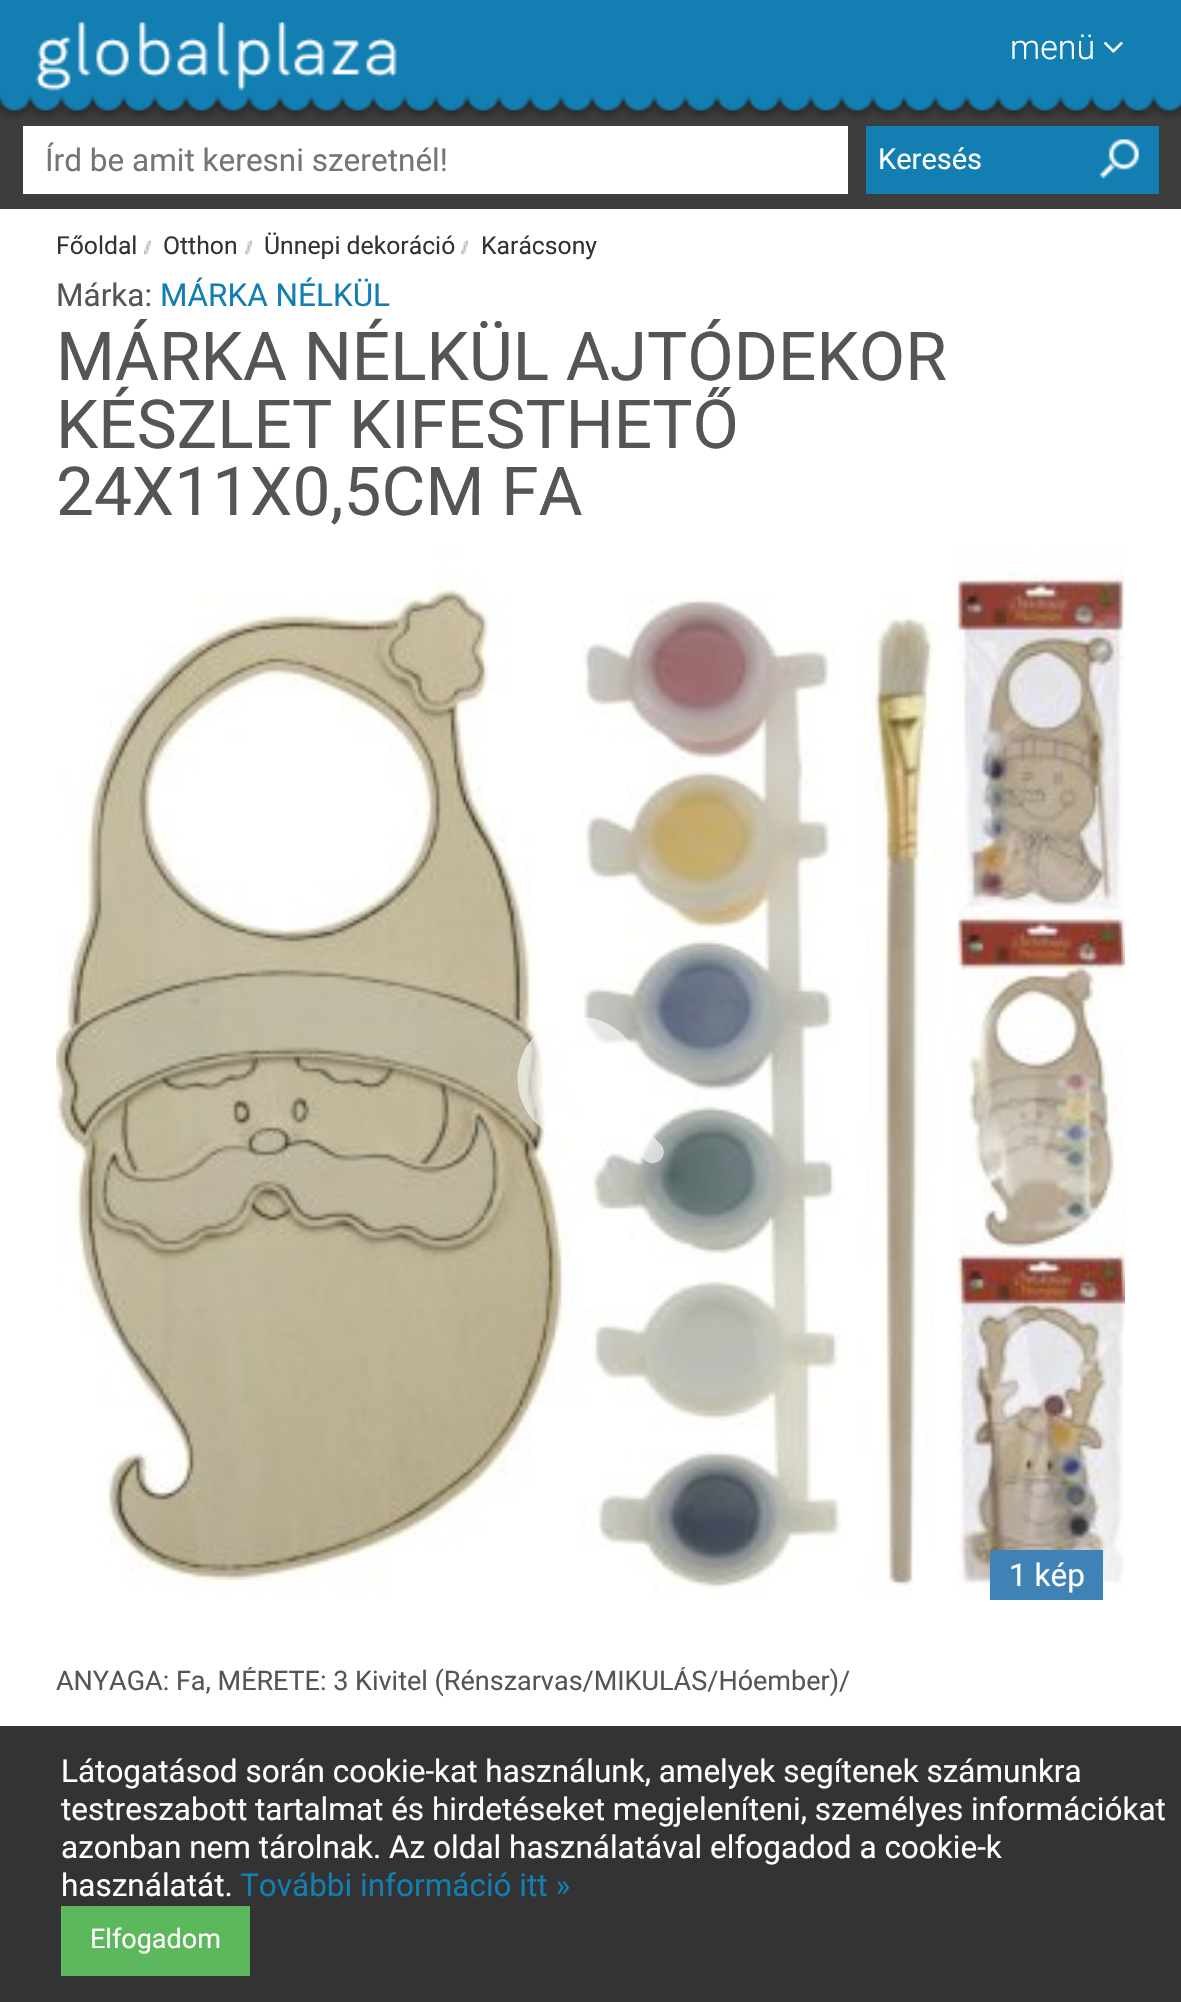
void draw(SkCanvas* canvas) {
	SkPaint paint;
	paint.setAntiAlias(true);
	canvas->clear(0xff3d3d3d);
	canvas->drawImageRect(SkImages::DeferredFromEncodedData(SkData::MakeFromFileName("img1.png")), SkRect::MakeXYWH(0, 0, 1181, 119), SkSamplingOptions());
	canvas->drawImageRect(SkImages::DeferredFromEncodedData(SkData::MakeFromFileName("img2.png")), SkRect::MakeXYWH(35, 22, 362, 69), SkSamplingOptions());
	SkFont f1(fontMgr->matchFamilyStyle("Roboto", SkFontStyle(300, SkFontStyle::kNormal_Width, SkFontStyle::kUpright_Slant)), 34);
	f1.setSubpixel(true);
	paint.setColor(0xffffffff);
	canvas->drawString("menü", 1010, 59, f1, paint);
	canvas->drawImageRect(SkImages::DeferredFromEncodedData(SkData::MakeFromFileName("img3.png")), SkRect::MakeXYWH(1104, 41, 19, 12), SkSamplingOptions());
	canvas->drawRect(SkRect::MakeXYWH(23, 126, 825, 68), paint);
	SkFont f2(fontMgr->matchFamilyStyle("Roboto", SkFontStyle::Normal()), 31.5);
	f2.setSubpixel(true);
	paint.setColor(0xff757575);
	canvas->drawString("Írd be amit keresni szeretnél!", 45, 171, f2, paint);
	paint.setColor(0xff127eb2);
	canvas->drawRect(SkRect::MakeXYWH(866, 126, 293, 68), paint);
	canvas->drawImageRect(SkImages::DeferredFromEncodedData(SkData::MakeFromFileName("img4.png")), SkRect::MakeXYWH(1099, 139, 41, 40), SkSamplingOptions());
	SkFont f3(fontMgr->matchFamilyStyle("Roboto", SkFontStyle::Normal()), 29);
	f3.setSubpixel(true);
	paint.setColor(0xffffffff);
	canvas->drawString("Keresés", 878, 169, f3, paint);
	canvas->drawRect(SkRect::MakeXYWH(0, 209, 1181, 1793), paint);
	canvas->drawImageRect(SkImages::DeferredFromEncodedData(SkData::MakeFromFileName("img5.png")), SkRect::MakeXYWH(144, 240, 7, 15), SkSamplingOptions());
	SkFont f4(fontMgr->matchFamilyStyle("Roboto", SkFontStyle::Normal()), 24.75);
	f4.setSubpixel(true);
	paint.setColor(0xff333333);
	canvas->drawString("Főoldal", 56, 254, f4, paint);
	canvas->drawImageRect(SkImages::DeferredFromEncodedData(SkData::MakeFromFileName("img6.png")), SkRect::MakeXYWH(245, 240, 7, 15), SkSamplingOptions());
	canvas->drawString("Otthon", 163, 254, f4, paint);
	canvas->drawImageRect(SkImages::DeferredFromEncodedData(SkData::MakeFromFileName("img7.png")), SkRect::MakeXYWH(461, 240, 7, 15), SkSamplingOptions());
	canvas->drawString("Ünnepi dekoráció", 264, 254, f4, paint);
	canvas->drawString("Karácsony", 481, 254, f4, paint);
	paint.setColor(0xff555555);
	canvas->drawString("Márka:", 56, 306, f2, paint);
	paint.setColor(0xff127eb2);
	canvas->drawString("MÁRKA NÉLKÜL", 160, 306, f2, paint);
	SkFont f5(fontMgr->matchFamilyStyle("Roboto", SkFontStyle::Normal()), 67.5);
	f5.setSubpixel(true);
	paint.setColor(0xff555555);
	canvas->drawString("MÁRKA NÉLKÜL AJTÓDEKOR", 56, 380, f5, paint);
	canvas->drawString("KÉSZLET KIFESTHETŐ", 56, 448, f5, paint);
	canvas->drawString("24X11X0,5CM FA", 56, 515, f5, paint);
	canvas->drawImageRect(SkImages::DeferredFromEncodedData(SkData::MakeFromFileName("img8.png")), SkRect::MakeXYWH(56, 549, 1069, 1045), SkSamplingOptions());
	canvas->drawImageRect(SkImages::DeferredFromEncodedData(SkData::MakeFromFileName("img9.png")), SkRect::MakeXYWH(517, 1017, 147, 147), SkSamplingOptions());
	paint.setColor(0xff3e82b6);
	canvas->drawRect(SkRect::MakeXYWH(990, 1550, 113, 50), paint);
	paint.setColor(0xffffffff);
	canvas->drawString("1 kép", 1009, 1586, f2, paint);
	canvas->save();
	canvas->clipRect(SkRect::MakeXYWH(56, 1667, 1069, 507));
	SkFont f6(fontMgr->matchFamilyStyle("Roboto", SkFontStyle::Normal()), 27);
	f6.setSubpixel(true);
	paint.setColor(0xff555555);
	canvas->drawString("ANYAGA: Fa, MÉRETE: 3 Kivitel (Rénszarvas/MIKULÁS/Hóember)/", 56, 1690, f6, paint);
	canvas->restore();
	paint.setColor(0xcc000000);
	canvas->drawRect(SkRect::MakeXYWH(0, 1726, 1181, 276), paint);
	paint.setColor(0xffffffff);
	canvas->drawString("Látogatásod során cookie-kat használunk, amelyek segítenek számunkra", 61, 1782, f2, paint);
	canvas->drawString("testreszabott tartalmat és hirdetéseket megjeleníteni, személyes információkat", 61, 1820, f2, paint);
	canvas->drawString("azonban nem tárolnak. Az oldal használatával elfogadod a cookie-k", 61, 1858, f2, paint);
	canvas->drawString("használatát.", 61, 1896, f2, paint);
	paint.setColor(0xff127eb2);
	canvas->drawString("További információ itt »", 240, 1896, f2, paint);
	paint.setColor(0xff5cb85c);
	canvas->drawRect(SkRect::MakeXYWH(61, 1906, 189, 70), paint);
	paint.setColor(0xffffffff);
	canvas->drawString("Elfogadom", 90, 1948, f6, paint);
}
